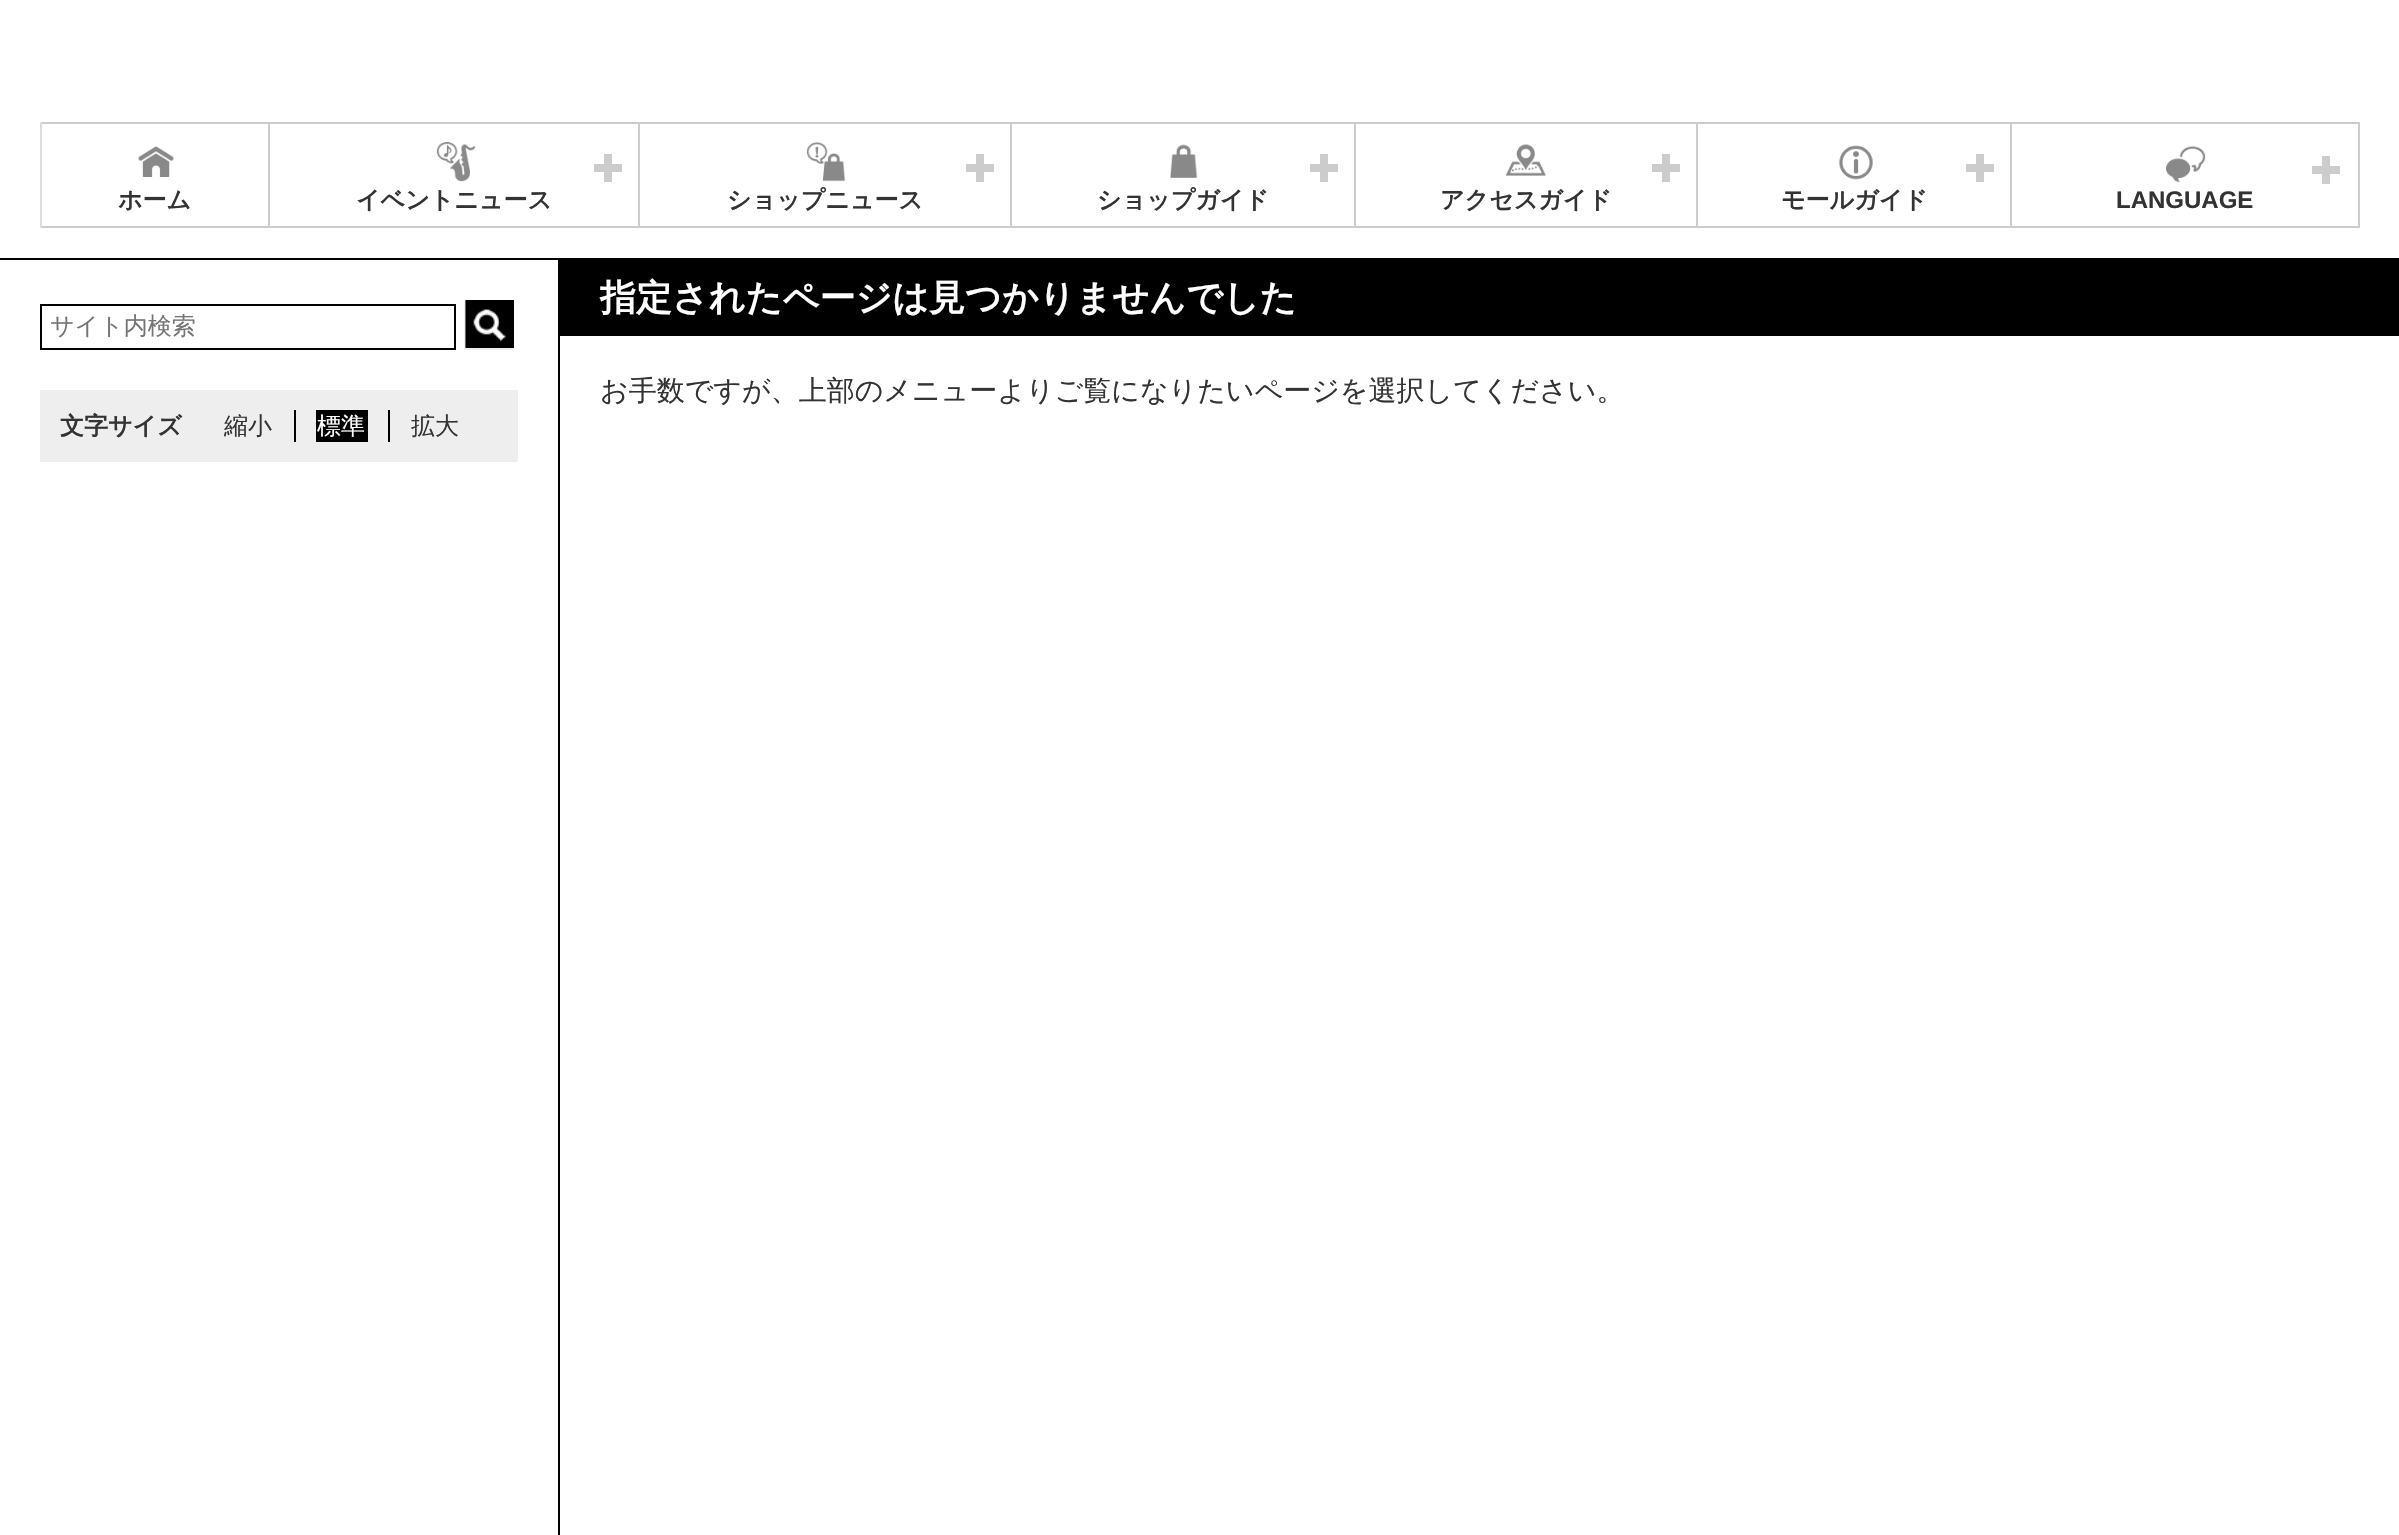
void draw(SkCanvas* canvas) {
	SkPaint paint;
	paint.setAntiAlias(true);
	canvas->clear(0xffffffff);
	paint.setColor(0xff000000);
	canvas->drawRect(SkRect::MakeXYWH(0, 258, 2399, 2), paint);
	paint.setColor(0xffdddddd);
	canvas->drawRect(SkRect::MakeXYWH(40, 122, 2, 106), paint);
	canvas->drawImageRect(SkImages::DeferredFromEncodedData(SkData::MakeFromFileName("img1.png")), SkRect::MakeXYWH(138, 146, 36, 31), SkSamplingOptions());
	paint.setColor(0xffcccccc);
	canvas->drawRect(SkRect::MakeXYWH(42, 122, 1970, 2), paint);
	canvas->drawRect(SkRect::MakeXYWH(268, 122, 2, 106), paint);
	canvas->drawRect(SkRect::MakeXYWH(42, 226, 228, 2), paint);
	SkFont f1(fontMgr->matchFamilyStyle("WenQuanYi Zen Hei", SkFontStyle::Bold()), 24);
	f1.setSubpixel(true);
	paint.setColor(0xff333333);
	canvas->drawString("ホーム", 118, 208, f1, paint);
	canvas->drawImageRect(SkImages::DeferredFromEncodedData(SkData::MakeFromFileName("img2.png")), SkRect::MakeXYWH(436, 142, 40, 40), SkSamplingOptions());
	paint.setColor(0xffcccccc);
	canvas->drawRect(SkRect::MakeXYWH(594, 164, 28, 8), paint);
	canvas->drawRect(SkRect::MakeXYWH(604, 154, 8, 28), paint);
	canvas->drawRect(SkRect::MakeXYWH(638, 122, 2, 106), paint);
	canvas->drawRect(SkRect::MakeXYWH(270, 226, 370, 2), paint);
	paint.setColor(0xff333333);
	canvas->drawString("イベントニュース", 356, 208, f1, paint);
	canvas->drawImageRect(SkImages::DeferredFromEncodedData(SkData::MakeFromFileName("img3.png")), SkRect::MakeXYWH(806, 142, 40, 40), SkSamplingOptions());
	paint.setColor(0xffcccccc);
	canvas->drawRect(SkRect::MakeXYWH(966, 164, 28, 8), paint);
	canvas->drawRect(SkRect::MakeXYWH(976, 154, 8, 28), paint);
	canvas->drawRect(SkRect::MakeXYWH(1010, 122, 2, 106), paint);
	canvas->drawRect(SkRect::MakeXYWH(640, 226, 372, 2), paint);
	paint.setColor(0xff333333);
	canvas->drawString("ショップニュース", 727, 208, f1, paint);
	canvas->drawImageRect(SkImages::DeferredFromEncodedData(SkData::MakeFromFileName("img4.png")), SkRect::MakeXYWH(1170, 144, 28, 34), SkSamplingOptions());
	paint.setColor(0xffcccccc);
	canvas->drawRect(SkRect::MakeXYWH(1310, 164, 28, 8), paint);
	canvas->drawRect(SkRect::MakeXYWH(1320, 154, 8, 28), paint);
	canvas->drawRect(SkRect::MakeXYWH(1354, 122, 2, 106), paint);
	canvas->drawRect(SkRect::MakeXYWH(1012, 226, 344, 2), paint);
	paint.setColor(0xff333333);
	canvas->drawString("ショップガイド", 1097, 208, f1, paint);
	canvas->drawImageRect(SkImages::DeferredFromEncodedData(SkData::MakeFromFileName("img5.png")), SkRect::MakeXYWH(1506, 144, 40, 32), SkSamplingOptions());
	paint.setColor(0xffcccccc);
	canvas->drawRect(SkRect::MakeXYWH(1652, 164, 28, 8), paint);
	canvas->drawRect(SkRect::MakeXYWH(1662, 154, 8, 28), paint);
	canvas->drawRect(SkRect::MakeXYWH(1696, 122, 2, 106), paint);
	canvas->drawRect(SkRect::MakeXYWH(1356, 226, 342, 2), paint);
	paint.setColor(0xff333333);
	canvas->drawString("アクセスガイド", 1440, 208, f1, paint);
	canvas->drawImageRect(SkImages::DeferredFromEncodedData(SkData::MakeFromFileName("img6.png")), SkRect::MakeXYWH(1839, 145, 34, 35), SkSamplingOptions());
	paint.setColor(0xffcccccc);
	canvas->drawRect(SkRect::MakeXYWH(1966, 164, 28, 8), paint);
	canvas->drawRect(SkRect::MakeXYWH(1976, 154, 8, 28), paint);
	canvas->drawRect(SkRect::MakeXYWH(2010, 122, 2, 106), paint);
	canvas->drawRect(SkRect::MakeXYWH(1698, 226, 660, 2), paint);
	paint.setColor(0xff333333);
	canvas->drawString("モールガイド", 1781, 208, f1, paint);
	paint.setColor(0xffcccccc);
	canvas->drawRect(SkRect::MakeXYWH(2012, 122, 348, 2), paint);
	canvas->drawRect(SkRect::MakeXYWH(2358, 122, 2, 106), paint);
	canvas->drawImageRect(SkImages::DeferredFromEncodedData(SkData::MakeFromFileName("img7.png")), SkRect::MakeXYWH(2166, 146, 40, 37), SkSamplingOptions());
	canvas->drawRect(SkRect::MakeXYWH(2312, 166, 28, 8), paint);
	canvas->drawRect(SkRect::MakeXYWH(2322, 156, 8, 28), paint);
	SkFont f2(fontMgr->matchFamilyStyle("Liberation Sans", SkFontStyle::Bold()), 24);
	f2.setSubpixel(true);
	paint.setColor(0xff333333);
	canvas->drawString("LANGUAGE", 2116, 208, f2, paint);
	paint.setColor(0xff000000);
	canvas->drawRect(SkRect::MakeXYWH(558, 260, 2, 1275), paint);
	paint.setStroke(true);
	paint.setStrokeWidth(2);
	canvas->drawRect(SkRect::MakeXYWH(41, 305, 414, 44), paint);
	SkFont f3(fontMgr->matchFamilyStyle("WenQuanYi Zen Hei", SkFontStyle(500, SkFontStyle::kNormal_Width, SkFontStyle::kUpright_Slant)), 24);
	f3.setSubpixel(true);
	paint.setStroke(false);
	paint.setColor(0xff757575);
	canvas->drawString("サイト内検索", 50, 334, f3, paint);
	paint.setColor(0xffefefef);
	canvas->drawRect(SkRect::MakeXYWH(464, 300, 50, 50), paint);
	canvas->drawImageRect(SkImages::DeferredFromEncodedData(SkData::MakeFromFileName("img8.png")), SkRect::MakeXYWH(465, 300, 49, 48), SkSamplingOptions());
	paint.setColor(0xffeeeeee);
	canvas->drawRect(SkRect::MakeXYWH(40, 390, 478, 72), paint);
	paint.setColor(0xff333333);
	canvas->drawString("文字サイズ", 60, 434, f1, paint);
	canvas->drawString("縮小", 224, 434, f3, paint);
	paint.setColor(0xff000000);
	canvas->drawRect(SkRect::MakeXYWH(294, 410, 2, 32), paint);
	canvas->drawRect(SkRect::MakeXYWH(316, 410, 52, 32), paint);
	paint.setColor(0xffffffff);
	canvas->drawString("標準", 317, 434, f3, paint);
	paint.setColor(0xff000000);
	canvas->drawRect(SkRect::MakeXYWH(388, 410, 2, 32), paint);
	paint.setColor(0xff333333);
	canvas->drawString("拡大", 411, 434, f3, paint);
	paint.setColor(0xff000000);
	canvas->drawRect(SkRect::MakeXYWH(560, 260, 1839, 76), paint);
	SkFont f4(fontMgr->matchFamilyStyle("WenQuanYi Zen Hei", SkFontStyle::Bold()), 36);
	f4.setSubpixel(true);
	paint.setColor(0xffffffff);
	canvas->drawString("指定されたページは見つかりませんでした", 600, 310, f4, paint);
	SkFont f5(fontMgr->matchFamilyStyle("WenQuanYi Zen Hei", SkFontStyle(500, SkFontStyle::kNormal_Width, SkFontStyle::kUpright_Slant)), 28);
	f5.setSubpixel(true);
	paint.setColor(0xff333333);
	canvas->drawString("お手数ですが、上部のメニューよりご覧になりたいページを選択してください。", 600, 400, f5, paint);
}
